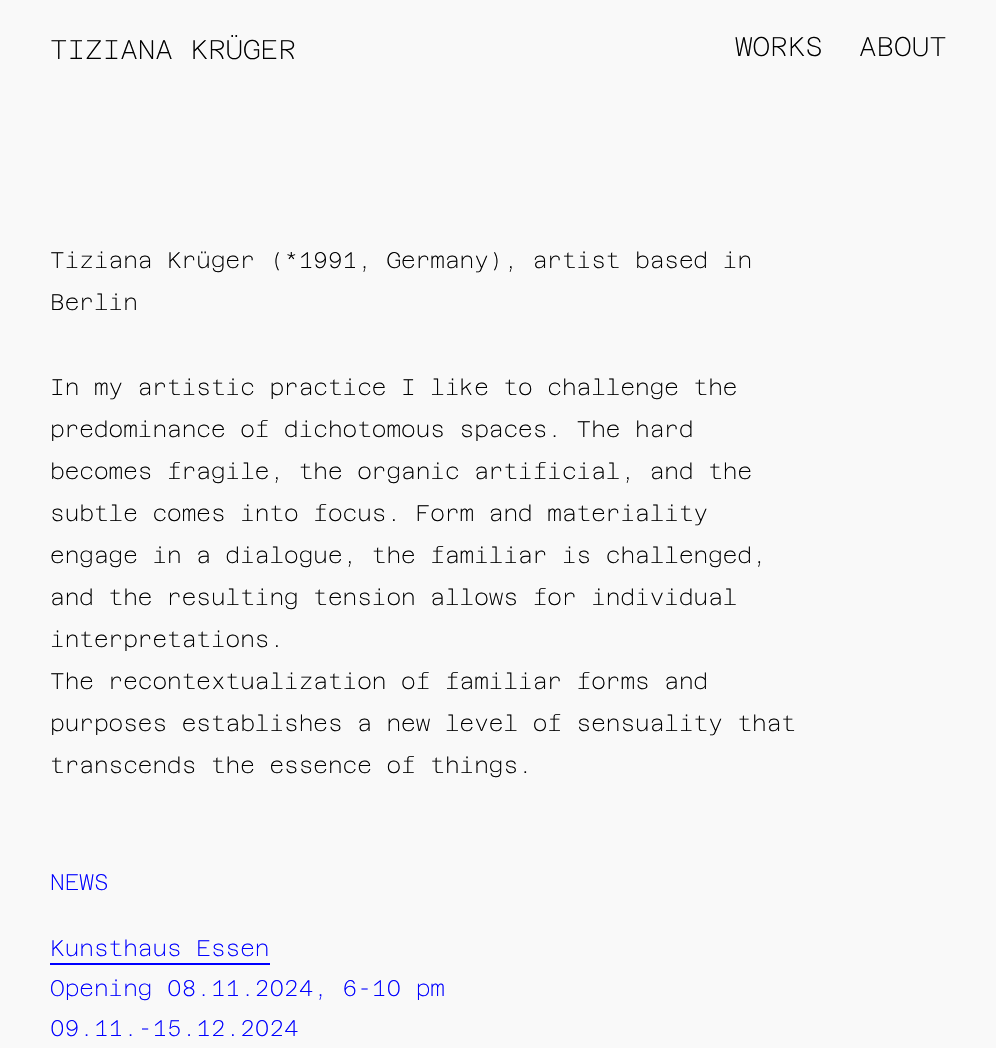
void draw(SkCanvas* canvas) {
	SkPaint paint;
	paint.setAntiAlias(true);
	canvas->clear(0xfff9f9f9);
	SkFont f1(fontMgr->matchFamilyStyle("Azeret Mono", SkFontStyle(100, SkFontStyle::kNormal_Width, SkFontStyle::kUpright_Slant)), 27);
	f1.setSubpixel(true);
	paint.setColor(0xff000000);
	canvas->drawString("TIZIANA KRÜGER", 50, 59, f1, paint);
	canvas->drawString("WORKS", 735, 56, f1, paint);
	canvas->drawString("ABOUT", 859, 56, f1, paint);
	SkFont f2(fontMgr->matchFamilyStyle("Azeret Mono", SkFontStyle(100, SkFontStyle::kNormal_Width, SkFontStyle::kUpright_Slant)), 22.5);
	f2.setSubpixel(true);
	canvas->drawString("Tiziana Krüger (*1991, Germany), artist based in", 50, 268, f2, paint);
	canvas->drawString("Berlin", 50, 310, f2, paint);
	canvas->drawString("In my artistic practice I like to challenge the", 50, 395, f2, paint);
	canvas->drawString("predominance of dichotomous spaces. The hard", 50, 437, f2, paint);
	canvas->drawString("becomes fragile, the organic artificial, and the", 50, 479, f2, paint);
	canvas->drawString("subtle comes into focus. Form and materiality", 50, 521, f2, paint);
	canvas->drawString("engage in a dialogue, the familiar is challenged,", 50, 563, f2, paint);
	canvas->drawString("and the resulting tension allows for individual", 50, 605, f2, paint);
	canvas->drawString("interpretations.", 50, 647, f2, paint);
	canvas->drawString("The recontextualization of familiar forms and", 50, 689, f2, paint);
	canvas->drawString("purposes establishes a new level of sensuality that", 50, 731, f2, paint);
	canvas->drawString("transcends the essence of things.", 50, 773, f2, paint);
	paint.setColor(0xff0000ff);
	canvas->drawString("NEWS", 50, 890, f2, paint);
	canvas->drawString("Kunsthaus Essen", 50, 956, f2, paint);
	canvas->drawRect(SkRect::MakeXYWH(50, 963, 220, 2), paint);
	canvas->drawString("Opening 08.11.2024, 6-10 pm", 50, 996, f2, paint);
	canvas->drawString("09.11.-15.12.2024", 50, 1036, f2, paint);
}
